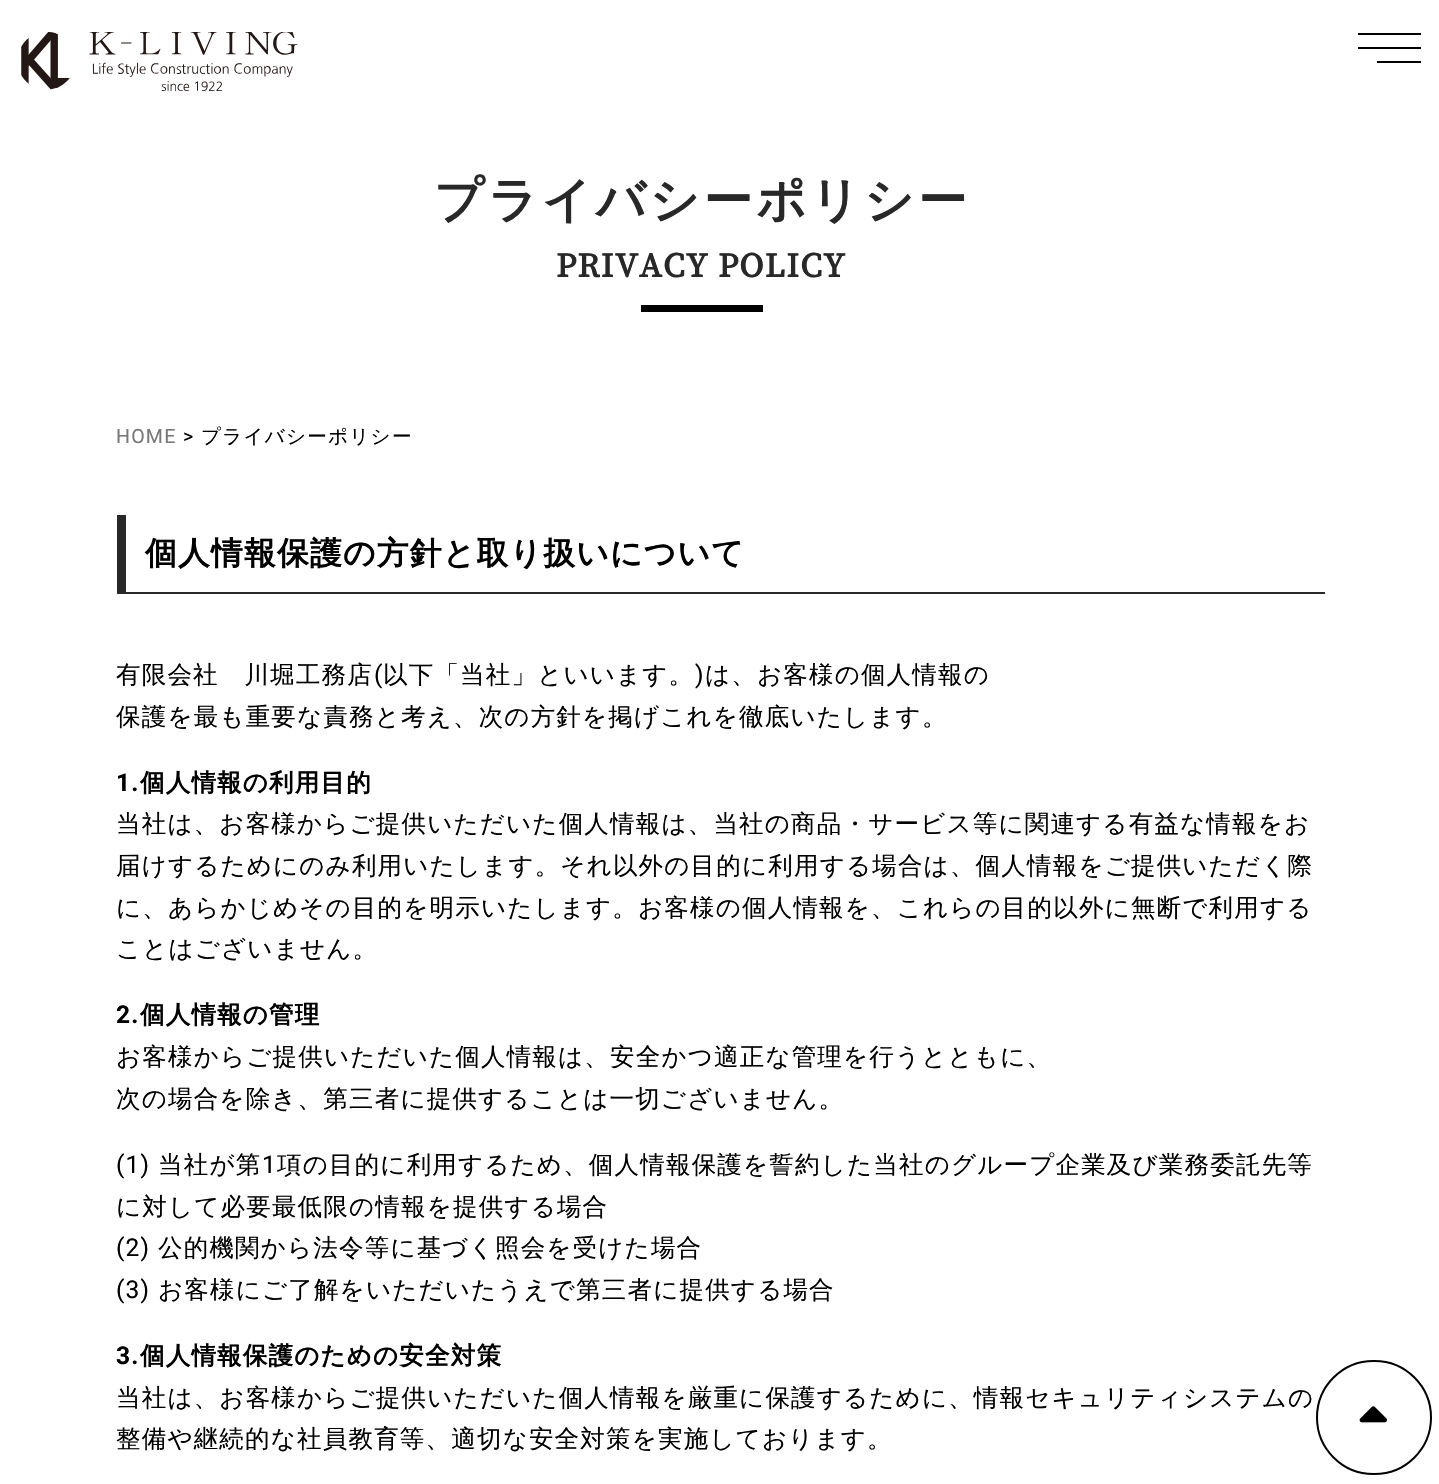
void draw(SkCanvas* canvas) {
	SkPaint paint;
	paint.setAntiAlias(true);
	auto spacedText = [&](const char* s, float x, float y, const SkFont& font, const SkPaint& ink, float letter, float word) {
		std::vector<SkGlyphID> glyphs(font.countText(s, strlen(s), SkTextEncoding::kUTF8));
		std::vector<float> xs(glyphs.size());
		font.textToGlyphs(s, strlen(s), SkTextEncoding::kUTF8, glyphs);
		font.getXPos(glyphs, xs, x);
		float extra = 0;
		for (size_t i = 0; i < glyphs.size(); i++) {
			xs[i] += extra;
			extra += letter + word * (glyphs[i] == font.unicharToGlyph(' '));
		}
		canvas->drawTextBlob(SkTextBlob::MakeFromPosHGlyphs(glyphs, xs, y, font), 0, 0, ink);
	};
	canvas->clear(0xffffffff);
	canvas->drawImageRect(SkImages::DeferredFromEncodedData(SkData::MakeFromFileName("img1.png")), SkRect::MakeXYWH(21, 32, 277, 59), SkSamplingOptions());
	paint.setColor(0xff000000);
	canvas->drawRect(SkRect::MakeXYWH(1358, 33, 63, 2), paint);
	canvas->drawRect(SkRect::MakeXYWH(1358, 47, 63, 2), paint);
	canvas->drawRect(SkRect::MakeXYWH(1377, 61, 44, 2), paint);
	SkFont f1(fontMgr->matchFamilyStyle("WenQuanYi Zen Hei", SkFontStyle::Bold()), 49);
	f1.setSubpixel(true);
	paint.setColor(0xff282828);
	spacedText("プライバシーポリシー", 434, 217, f1, paint, 3.75, 0);
	SkFont f2(fontMgr->matchFamilyStyle("Source Serif Pro", SkFontStyle::Bold()), 34.25);
	f2.setSubpixel(true);
	spacedText("PRIVACY POLICY", 556, 277, f2, paint, 1.2, 0);
	paint.setColor(0xff000000);
	canvas->drawRect(SkRect::MakeXYWH(641, 305, 122, 7), paint);
	SkFont f3(fontMgr->matchFamilyStyle("Roboto", SkFontStyle::Normal()), 19.6);
	f3.setSubpixel(true);
	paint.setColor(0xff777777);
	spacedText("HOME", 116, 443, f3, paint, 1.2, 0);
	paint.setColor(0xff000000);
	spacedText(">", 183, 443, f3, paint, 1.2, 0);
	SkFont f4(fontMgr->matchFamilyStyle("WenQuanYi Zen Hei", SkFontStyle(500, SkFontStyle::kNormal_Width, SkFontStyle::kUpright_Slant)), 19.6);
	f4.setSubpixel(true);
	spacedText("プライバシーポリシー", 201, 443, f4, paint, 1.2, 0);
	paint.setColor(0xff282828);
	canvas->drawRect(SkRect::MakeXYWH(117, 592, 1208, 2), paint);
	canvas->drawRect(SkRect::MakeXYWH(117, 515, 9, 77), paint);
	SkFont f5(fontMgr->matchFamilyStyle("WenQuanYi Zen Hei", SkFontStyle::Bold()), 31.8);
	f5.setSubpixel(true);
	paint.setColor(0xff000000);
	spacedText("個人情報保護の方針と取り扱いについて", 145, 564, f5, paint, 1.2, 0);
	SkFont f6(fontMgr->matchFamilyStyle("WenQuanYi Zen Hei", SkFontStyle(500, SkFontStyle::kNormal_Width, SkFontStyle::kUpright_Slant)), 24.5);
	f6.setSubpixel(true);
	spacedText("有限会社　川堀工務店", 116, 683, f6, paint, 1.2, 0);
	SkFont f7(fontMgr->matchFamilyStyle("Roboto", SkFontStyle::Normal()), 24.5);
	f7.setSubpixel(true);
	spacedText("(", 374, 683, f7, paint, 1.2, 0);
	spacedText("以下「当社」といいます。", 383, 683, f6, paint, 1.2, 0);
	spacedText(")", 695, 683, f7, paint, 1.2, 0);
	spacedText("は、お客様の個人情報の", 705, 683, f6, paint, 1.2, 0);
	spacedText("保護を最も重要な責務と考え、次の方針を掲げこれを徹底いたします。", 116, 725, f6, paint, 1.2, 0);
	SkFont f8(fontMgr->matchFamilyStyle("Roboto", SkFontStyle::Bold()), 24.5);
	f8.setSubpixel(true);
	spacedText("1.", 116, 791, f8, paint, 1.2, 0);
	SkFont f9(fontMgr->matchFamilyStyle("WenQuanYi Zen Hei", SkFontStyle::Bold()), 24.5);
	f9.setSubpixel(true);
	spacedText("個人情報の利用目的", 140, 791, f9, paint, 1.2, 0);
	spacedText("当社は、お客様からご提供いただいた個人情報は、当社の商品・サービス等に関連する有益な情報をお", 116, 832, f6, paint, 1.2, 0);
	spacedText("届けするためにのみ利用いたします。それ以外の目的に利用する場合は、個人情報をご提供いただく際", 116, 874, f6, paint, 1.2, 0);
	spacedText("に、あらかじめその目的を明示いたします。お客様の個人情報を、これらの目的以外に無断で利用する", 116, 916, f6, paint, 1.2, 0);
	spacedText("ことはございません。", 116, 957, f6, paint, 1.2, 0);
	spacedText("2.", 116, 1023, f8, paint, 1.2, 0);
	spacedText("個人情報の管理", 140, 1023, f9, paint, 1.2, 0);
	spacedText("お客様からご提供いただいた個人情報は、安全かつ適正な管理を行うとともに、", 116, 1065, f6, paint, 1.2, 0);
	spacedText("次の場合を除き、第三者に提供することは一切ございません。", 116, 1107, f6, paint, 1.2, 0);
	spacedText("(1)", 116, 1173, f7, paint, 1.2, 0);
	spacedText("当社が第", 158, 1173, f6, paint, 1.2, 0);
	spacedText("1", 262, 1173, f7, paint, 1.2, 0);
	spacedText("項の目的に利用するため、個人情報保護を誓約した当社のグループ企業及び業務委託先等", 277, 1173, f6, paint, 1.2, 0);
	spacedText("に対して必要最低限の情報を提供する場合", 116, 1215, f6, paint, 1.2, 0);
	spacedText("(2)", 116, 1256, f7, paint, 1.2, 0);
	spacedText("公的機関から法令等に基づく照会を受けた場合", 158, 1256, f6, paint, 1.2, 0);
	spacedText("(3)", 116, 1298, f7, paint, 1.2, 0);
	spacedText("お客様にご了解をいただいたうえで第三者に提供する場合", 158, 1298, f6, paint, 1.2, 0);
	spacedText("3.", 116, 1364, f8, paint, 1.2, 0);
	spacedText("個人情報保護のための安全対策", 140, 1364, f9, paint, 1.2, 0);
	spacedText("当社は、お客様からご提供いただいた個人情報を厳重に保護するために、情報セキュリティシステムの", 116, 1406, f6, paint, 1.2, 0);
	spacedText("整備や継続的な社員教育等、適切な安全対策を実施しております。", 116, 1447, f6, paint, 1.2, 0);
	paint.setStroke(true);
	paint.setStrokeWidth(2);
	canvas->drawRoundRect(SkRect::MakeXYWH(1317, 1361, 114, 113), 56.5, 56.5, paint);
	canvas->drawImageRect(SkImages::DeferredFromEncodedData(SkData::MakeFromFileName("img2.png")), SkRect::MakeXYWH(1359, 1406, 28, 17), SkSamplingOptions());
}
